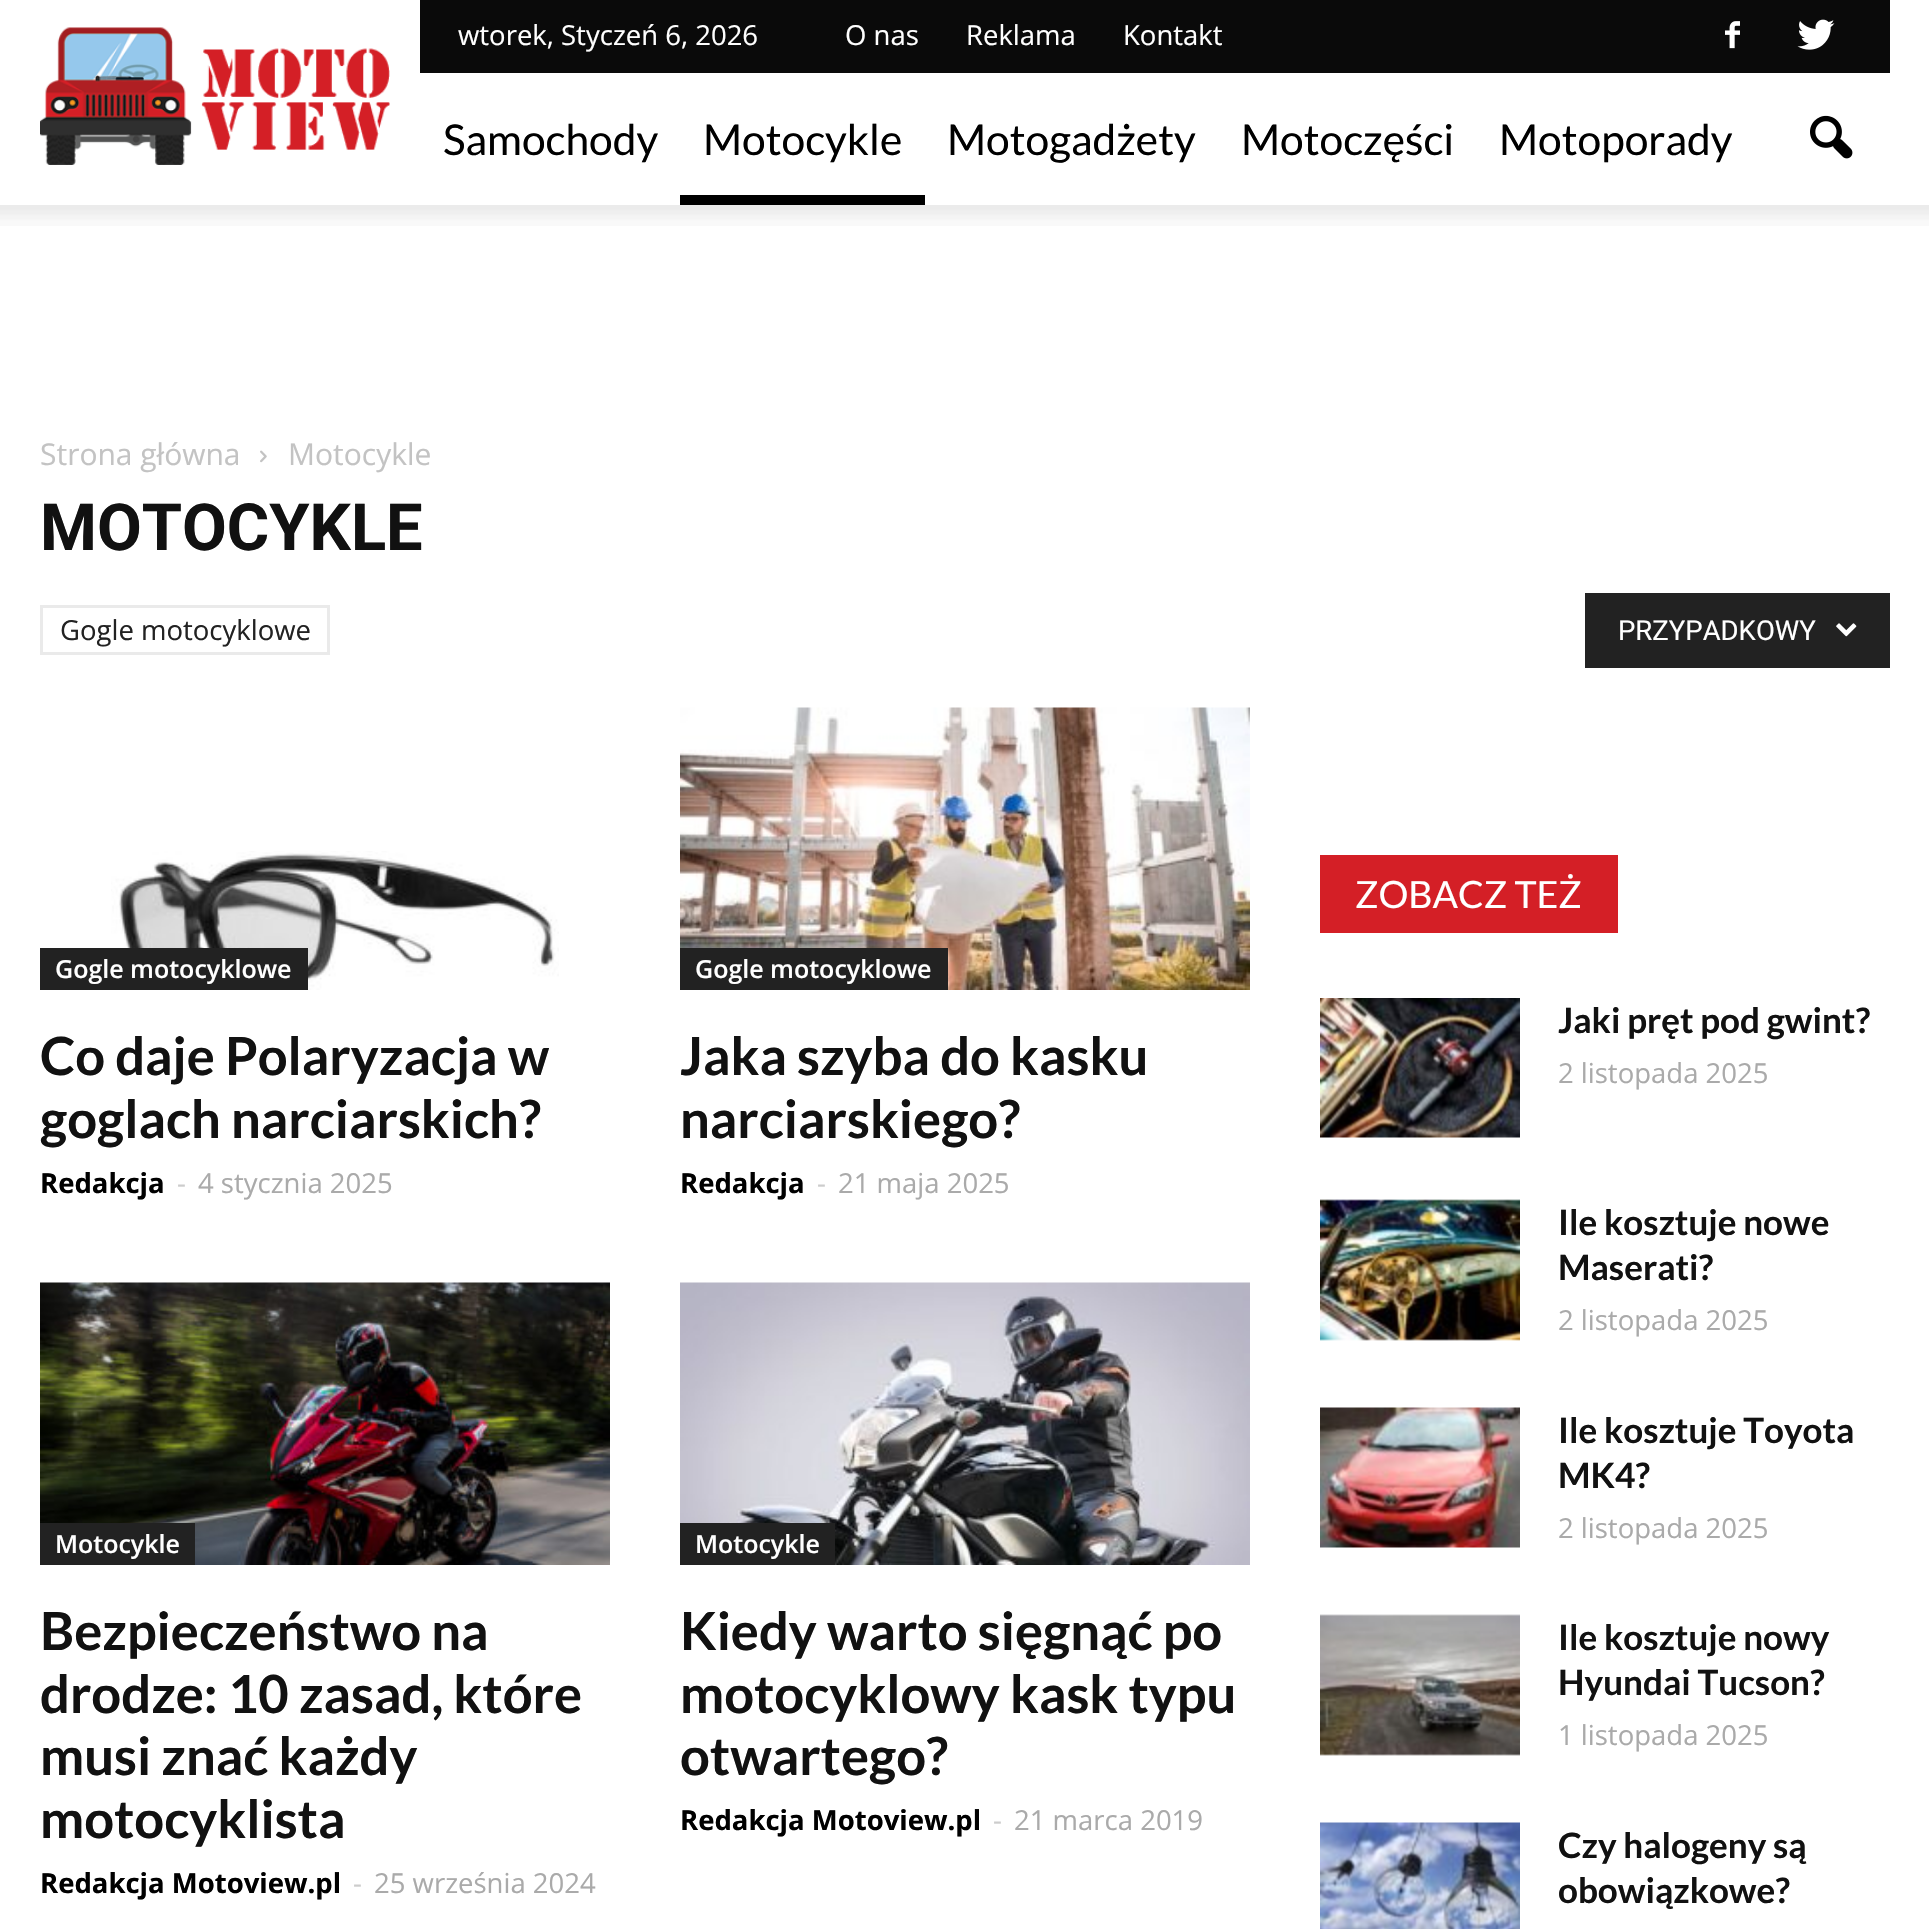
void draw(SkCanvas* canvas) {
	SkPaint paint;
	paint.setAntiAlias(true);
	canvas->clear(0xffffffff);
	canvas->drawImageRect(SkImages::DeferredFromEncodedData(SkData::MakeFromFileName("img1.png")), SkRect::MakeXYWH(40, 27, 350, 138), SkSamplingOptions());
	paint.setColor(0xff0a0a0a);
	canvas->drawRect(SkRect::MakeXYWH(420, 0, 1470, 73), paint);
	SkFont f1(fontMgr->matchFamilyStyle("Open Sans", SkFontStyle::Normal()), 27.5);
	f1.setSubpixel(true);
	paint.setColor(0xffffffff);
	canvas->drawString("wtorek, Styczeń 6, 2026", 458, 45, f1, paint);
	canvas->drawString("O nas", 845, 45, f1, paint);
	canvas->drawString("Reklama", 966, 45, f1, paint);
	canvas->drawString("Kontakt", 1123, 45, f1, paint);
	canvas->drawImageRect(SkImages::DeferredFromEncodedData(SkData::MakeFromFileName("img2.png")), SkRect::MakeXYWH(1725, 21, 15, 28), SkSamplingOptions());
	canvas->drawImageRect(SkImages::DeferredFromEncodedData(SkData::MakeFromFileName("img3.png")), SkRect::MakeXYWH(1797, 19, 38, 31), SkSamplingOptions());
	SkFont f2(fontMgr->matchFamilyStyle("Lato", SkFontStyle::Normal()), 42.5);
	f2.setSubpixel(true);
	paint.setColor(0xff000000);
	canvas->drawString("Samochody", 443, 155, f2, paint);
	canvas->drawString("Motocykle", 703, 155, f2, paint);
	canvas->drawRect(SkRect::MakeXYWH(680, 195, 245, 10), paint);
	canvas->drawString("Motogadżety", 947, 155, f2, paint);
	canvas->drawString("Motoczęści", 1241, 155, f2, paint);
	canvas->drawString("Motoporady", 1499, 155, f2, paint);
	canvas->drawImageRect(SkImages::DeferredFromEncodedData(SkData::MakeFromFileName("img4.png")), SkRect::MakeXYWH(1810, 115, 43, 44), SkSamplingOptions());
	canvas->drawImageRect(SkImages::DeferredFromEncodedData(SkData::MakeFromFileName("img5.png")), SkRect::MakeXYWH(0, 205, 1929, 21), SkSamplingOptions());
	SkFont f3(fontMgr->matchFamilyStyle("Open Sans", SkFontStyle::Normal()), 30);
	f3.setSubpixel(true);
	paint.setColor(0xffc3c3c3);
	canvas->drawString("Strona główna", 40, 465, f3, paint);
	canvas->drawImageRect(SkImages::DeferredFromEncodedData(SkData::MakeFromFileName("img6.png")), SkRect::MakeXYWH(260, 450, 7, 13), SkSamplingOptions());
	canvas->drawString("Motocykle", 288, 465, f3, paint);
	SkFont f4(fontMgr->matchFamilyStyle("Roboto", SkFontStyle::Bold()), 65);
	f4.setSubpixel(true);
	paint.setColor(0xff111111);
	canvas->drawString("MOTOCYKLE", 40, 550, f4, paint);
	paint.setStroke(true);
	paint.setStrokeWidth(3);
	paint.setColor(0xffeaeaea);
	canvas->drawRect(SkRect::MakeXYWH(41.5, 606.5, 287, 47), paint);
	paint.setStroke(false);
	paint.setColor(0xff222222);
	canvas->drawString("Gogle motocyklowe", 60, 640, f1, paint);
	canvas->drawRect(SkRect::MakeXYWH(1585, 593, 305, 75), paint);
	SkFont f5(fontMgr->matchFamilyStyle("Roboto", SkFontStyle::Normal()), 27.5);
	f5.setSubpixel(true);
	paint.setColor(0xffffffff);
	canvas->drawString("PRZYPADKOWY", 1618, 640, f5, paint);
	canvas->drawImageRect(SkImages::DeferredFromEncodedData(SkData::MakeFromFileName("img7.png")), SkRect::MakeXYWH(1836, 623, 21, 14), SkSamplingOptions());
	canvas->drawImageRect(SkImages::DeferredFromEncodedData(SkData::MakeFromFileName("img8.png")), SkRect::MakeXYWH(111, 851, 448, 139), SkSamplingOptions());
	paint.setColor(0xff222222);
	canvas->drawRect(SkRect::MakeXYWH(40, 948, 268, 42), paint);
	SkFont f6(fontMgr->matchFamilyStyle("Open Sans", SkFontStyle(600, SkFontStyle::kNormal_Width, SkFontStyle::kUpright_Slant)), 25);
	f6.setSubpixel(true);
	paint.setColor(0xffffffff);
	canvas->drawString("Gogle motocyklowe", 55, 978, f6, paint);
	SkFont f7(fontMgr->matchFamilyStyle("Lato", SkFontStyle::Bold()), 52.5);
	f7.setSubpixel(true);
	paint.setColor(0xff111111);
	canvas->drawString("Co daje Polaryzacja w", 40, 1075, f7, paint);
	canvas->drawString("goglach narciarskich?", 40, 1138, f7, paint);
	SkFont f8(fontMgr->matchFamilyStyle("Open Sans", SkFontStyle::Bold()), 27.5);
	f8.setSubpixel(true);
	paint.setColor(0xff000000);
	canvas->drawString("Redakcja", 40, 1193, f8, paint);
	paint.setColor(0xffcccccc);
	canvas->drawString("-", 177, 1193, f1, paint);
	paint.setColor(0xffaaaaaa);
	canvas->drawString("4 stycznia 2025", 198, 1193, f1, paint);
	canvas->drawImageRect(SkImages::DeferredFromEncodedData(SkData::MakeFromFileName("img9.png")), SkRect::MakeXYWH(680, 707, 570, 283), SkSamplingOptions());
	paint.setColor(0xff222222);
	canvas->drawRect(SkRect::MakeXYWH(680, 948, 268, 42), paint);
	paint.setColor(0xffffffff);
	canvas->drawString("Gogle motocyklowe", 695, 978, f6, paint);
	paint.setColor(0xff111111);
	canvas->drawString("Jaka szyba do kasku", 680, 1075, f7, paint);
	canvas->drawString("narciarskiego?", 680, 1138, f7, paint);
	paint.setColor(0xff000000);
	canvas->drawString("Redakcja", 680, 1193, f8, paint);
	paint.setColor(0xffcccccc);
	canvas->drawString("-", 817, 1193, f1, paint);
	paint.setColor(0xffaaaaaa);
	canvas->drawString("21 maja 2025", 838, 1193, f1, paint);
	canvas->drawImageRect(SkImages::DeferredFromEncodedData(SkData::MakeFromFileName("img10.png")), SkRect::MakeXYWH(40, 1282, 570, 283), SkSamplingOptions());
	paint.setColor(0xff222222);
	canvas->drawRect(SkRect::MakeXYWH(40, 1523, 155, 42), paint);
	paint.setColor(0xffffffff);
	canvas->drawString("Motocykle", 55, 1553, f6, paint);
	paint.setColor(0xff111111);
	canvas->drawString("Bezpieczeństwo na", 40, 1650, f7, paint);
	canvas->drawString("drodze: 10 zasad, które", 40, 1713, f7, paint);
	canvas->drawString("musi znać każdy", 40, 1775, f7, paint);
	canvas->drawString("motocyklista", 40, 1838, f7, paint);
	paint.setColor(0xff000000);
	canvas->drawString("Redakcja Motoview.pl", 40, 1893, f8, paint);
	paint.setColor(0xffcccccc);
	canvas->drawString("-", 353, 1893, f1, paint);
	paint.setColor(0xffaaaaaa);
	canvas->drawString("25 września 2024", 374, 1893, f1, paint);
	canvas->drawImageRect(SkImages::DeferredFromEncodedData(SkData::MakeFromFileName("img11.png")), SkRect::MakeXYWH(680, 1282, 570, 283), SkSamplingOptions());
	paint.setColor(0xff222222);
	canvas->drawRect(SkRect::MakeXYWH(680, 1523, 155, 42), paint);
	paint.setColor(0xffffffff);
	canvas->drawString("Motocykle", 695, 1553, f6, paint);
	paint.setColor(0xff111111);
	canvas->drawString("Kiedy warto sięgnąć po", 680, 1650, f7, paint);
	canvas->drawString("motocyklowy kask typu", 680, 1713, f7, paint);
	canvas->drawString("otwartego?", 680, 1775, f7, paint);
	paint.setColor(0xff000000);
	canvas->drawString("Redakcja Motoview.pl", 680, 1830, f8, paint);
	paint.setColor(0xffcccccc);
	canvas->drawString("-", 993, 1830, f1, paint);
	paint.setColor(0xffaaaaaa);
	canvas->drawString("21 marca 2019", 1014, 1830, f1, paint);
	paint.setColor(0xffd41f26);
	canvas->drawRect(SkRect::MakeXYWH(1320, 855, 298, 78), paint);
	SkFont f9(fontMgr->matchFamilyStyle("Lato", SkFontStyle::Normal()), 37.5);
	f9.setSubpixel(true);
	paint.setColor(0xffffffff);
	canvas->drawString("ZOBACZ TEŻ", 1355, 908, f9, paint);
	canvas->drawImageRect(SkImages::DeferredFromEncodedData(SkData::MakeFromFileName("img12.png")), SkRect::MakeXYWH(1320, 998, 200, 140), SkSamplingOptions());
	SkFont f10(fontMgr->matchFamilyStyle("Lato", SkFontStyle::Bold()), 35);
	f10.setSubpixel(true);
	paint.setColor(0xff111111);
	canvas->drawString("Jaki pręt pod gwint?", 1558, 1033, f10, paint);
	paint.setColor(0xffaaaaaa);
	canvas->drawString("2 listopada 2025", 1558, 1083, f1, paint);
	canvas->drawImageRect(SkImages::DeferredFromEncodedData(SkData::MakeFromFileName("img13.png")), SkRect::MakeXYWH(1320, 1199, 200, 142), SkSamplingOptions());
	paint.setColor(0xff111111);
	canvas->drawString("Ile kosztuje nowe", 1558, 1235, f10, paint);
	canvas->drawString("Maserati?", 1558, 1280, f10, paint);
	paint.setColor(0xffaaaaaa);
	canvas->drawString("2 listopada 2025", 1558, 1330, f1, paint);
	canvas->drawImageRect(SkImages::DeferredFromEncodedData(SkData::MakeFromFileName("img14.png")), SkRect::MakeXYWH(1320, 1407, 200, 141), SkSamplingOptions());
	paint.setColor(0xff111111);
	canvas->drawString("Ile kosztuje Toyota", 1558, 1443, f10, paint);
	canvas->drawString("MK4?", 1558, 1488, f10, paint);
	paint.setColor(0xffaaaaaa);
	canvas->drawString("2 listopada 2025", 1558, 1538, f1, paint);
	canvas->drawImageRect(SkImages::DeferredFromEncodedData(SkData::MakeFromFileName("img15.png")), SkRect::MakeXYWH(1320, 1614, 200, 142), SkSamplingOptions());
	paint.setColor(0xff111111);
	canvas->drawString("Ile kosztuje nowy", 1558, 1650, f10, paint);
	canvas->drawString("Hyundai Tucson?", 1558, 1695, f10, paint);
	paint.setColor(0xffaaaaaa);
	canvas->drawString("1 listopada 2025", 1558, 1745, f1, paint);
	canvas->drawImageRect(SkImages::DeferredFromEncodedData(SkData::MakeFromFileName("img16.png")), SkRect::MakeXYWH(1320, 1822, 200, 107), SkSamplingOptions());
	paint.setColor(0xff111111);
	canvas->drawString("Czy halogeny są", 1558, 1858, f10, paint);
	canvas->drawString("obowiązkowe?", 1558, 1903, f10, paint);
}
